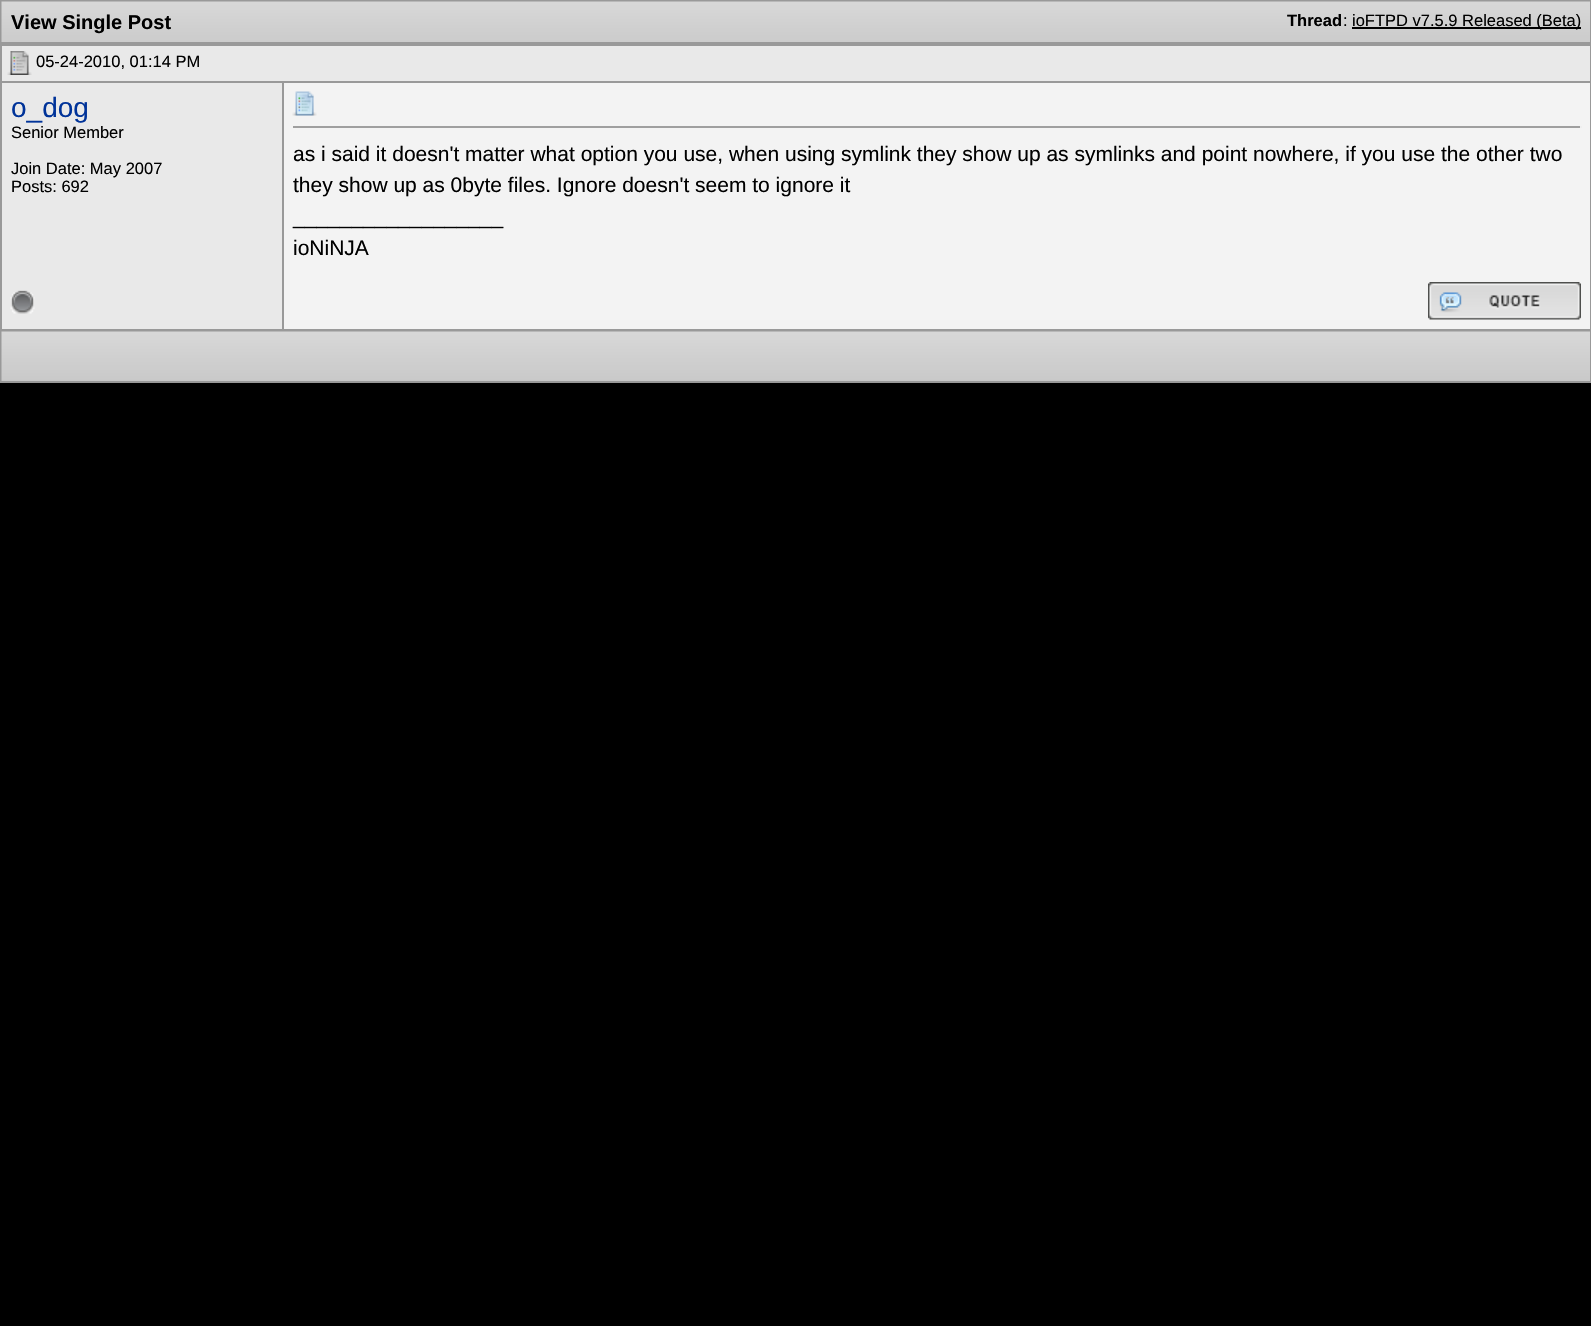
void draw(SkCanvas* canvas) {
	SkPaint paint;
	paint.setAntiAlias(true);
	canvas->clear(0xff000000);
	paint.setColor(0xff999999);
	canvas->drawRect(SkRect::MakeXYWH(0, 0, 1591, 44), paint);
	canvas->drawImageRect(SkImages::DeferredFromEncodedData(SkData::MakeFromFileName("img1.png")), SkRect::MakeXYWH(1, 1, 1589, 41), SkSamplingOptions());
	SkFont f1(fontMgr->matchFamilyStyle("Liberation Sans", SkFontStyle::Bold()), 20);
	f1.setSubpixel(true);
	paint.setColor(0xff000000);
	canvas->drawString("View Single Post", 11, 29, f1, paint);
	SkFont f2(fontMgr->matchFamilyStyle("Liberation Sans", SkFontStyle::Bold()), 16.5);
	f2.setSubpixel(true);
	canvas->drawString("Thread", 1287, 26, f2, paint);
	SkFont f3(fontMgr->matchFamilyStyle("Liberation Sans", SkFontStyle::Normal()), 16.5);
	f3.setSubpixel(true);
	canvas->drawString(":", 1343, 26, f3, paint);
	canvas->drawRect(SkRect::MakeXYWH(1352, 27, 229, 2), paint);
	canvas->drawString("ioFTPD v7.5.9 Released (Beta)", 1352, 26, f3, paint);
	paint.setColor(0xffe9e9e9);
	canvas->drawRect(SkRect::MakeXYWH(2, 46, 1588, 35), paint);
	paint.setColor(0xff999999);
	canvas->drawRect(SkRect::MakeXYWH(0, 44, 1591, 2), paint);
	canvas->drawRect(SkRect::MakeXYWH(0, 81, 284, 2), paint);
	canvas->drawRect(SkRect::MakeXYWH(0, 44, 2, 229), paint);
	canvas->drawImageRect(SkImages::DeferredFromEncodedData(SkData::MakeFromFileName("img2.png")), SkRect::MakeXYWH(7, 51, 25, 24), SkSamplingOptions());
	paint.setColor(0xff000000);
	canvas->drawString("05-24-2010, 01:14 PM", 36, 67, f3, paint);
	paint.setColor(0xff999999);
	canvas->drawRect(SkRect::MakeXYWH(1590, 44, 1, 286), paint);
	canvas->drawRect(SkRect::MakeXYWH(284, 81, 1307, 2), paint);
	paint.setColor(0xffe9e9e9);
	canvas->drawRect(SkRect::MakeXYWH(2, 83, 280, 246), paint);
	paint.setColor(0xff999999);
	canvas->drawRect(SkRect::MakeXYWH(282, 83, 2, 247), paint);
	SkFont f4(fontMgr->matchFamilyStyle("Liberation Sans", SkFontStyle::Normal()), 28);
	f4.setSubpixel(true);
	paint.setColor(0xff003399);
	canvas->drawString("o_dog", 11, 117, f4, paint);
	paint.setColor(0xff000000);
	canvas->drawString("Senior Member", 11, 138, f3, paint);
	canvas->drawString("Join Date: May 2007", 11, 174, f3, paint);
	canvas->drawString("Posts: 692", 11, 192, f3, paint);
	paint.setColor(0xfff3f3f3);
	canvas->drawRect(SkRect::MakeXYWH(284, 83, 1306, 246), paint);
	canvas->drawImageRect(SkImages::DeferredFromEncodedData(SkData::MakeFromFileName("img3.png")), SkRect::MakeXYWH(292, 91, 25, 25), SkSamplingOptions());
	paint.setColor(0xff9f9f9f);
	canvas->drawRect(SkRect::MakeXYWH(293, 126, 1288, 2), paint);
	paint.setColor(0xffeeeeee);
	canvas->drawRect(SkRect::MakeXYWH(1580, 126, 2, 2), paint);
	SkFont f5(fontMgr->matchFamilyStyle("Liberation Sans", SkFontStyle::Normal()), 21);
	f5.setSubpixel(true);
	paint.setColor(0xff000000);
	canvas->drawString("as i said it doesn't matter what option you use, when using symlink they show up as symlinks and point nowhere, if you use the other two", 293, 161, f5, paint);
	canvas->drawString("they show up as 0byte files. Ignore doesn't seem to ignore it", 293, 192, f5, paint);
	canvas->drawString("__________________", 293, 224, f5, paint);
	canvas->drawString("ioNiNJA", 293, 255, f5, paint);
	paint.setColor(0xff999999);
	canvas->drawRect(SkRect::MakeXYWH(0, 329, 1591, 54), paint);
	canvas->drawRect(SkRect::MakeXYWH(0, 273, 2, 57), paint);
	canvas->drawImageRect(SkImages::DeferredFromEncodedData(SkData::MakeFromFileName("img4.png")), SkRect::MakeXYWH(10, 290, 25, 24), SkSamplingOptions());
	canvas->drawImageRect(SkImages::DeferredFromEncodedData(SkData::MakeFromFileName("img5.png")), SkRect::MakeXYWH(1428, 282, 153, 38), SkSamplingOptions());
	canvas->drawImageRect(SkImages::DeferredFromEncodedData(SkData::MakeFromFileName("img6.png")), SkRect::MakeXYWH(1, 331, 1589, 50), SkSamplingOptions());
}
